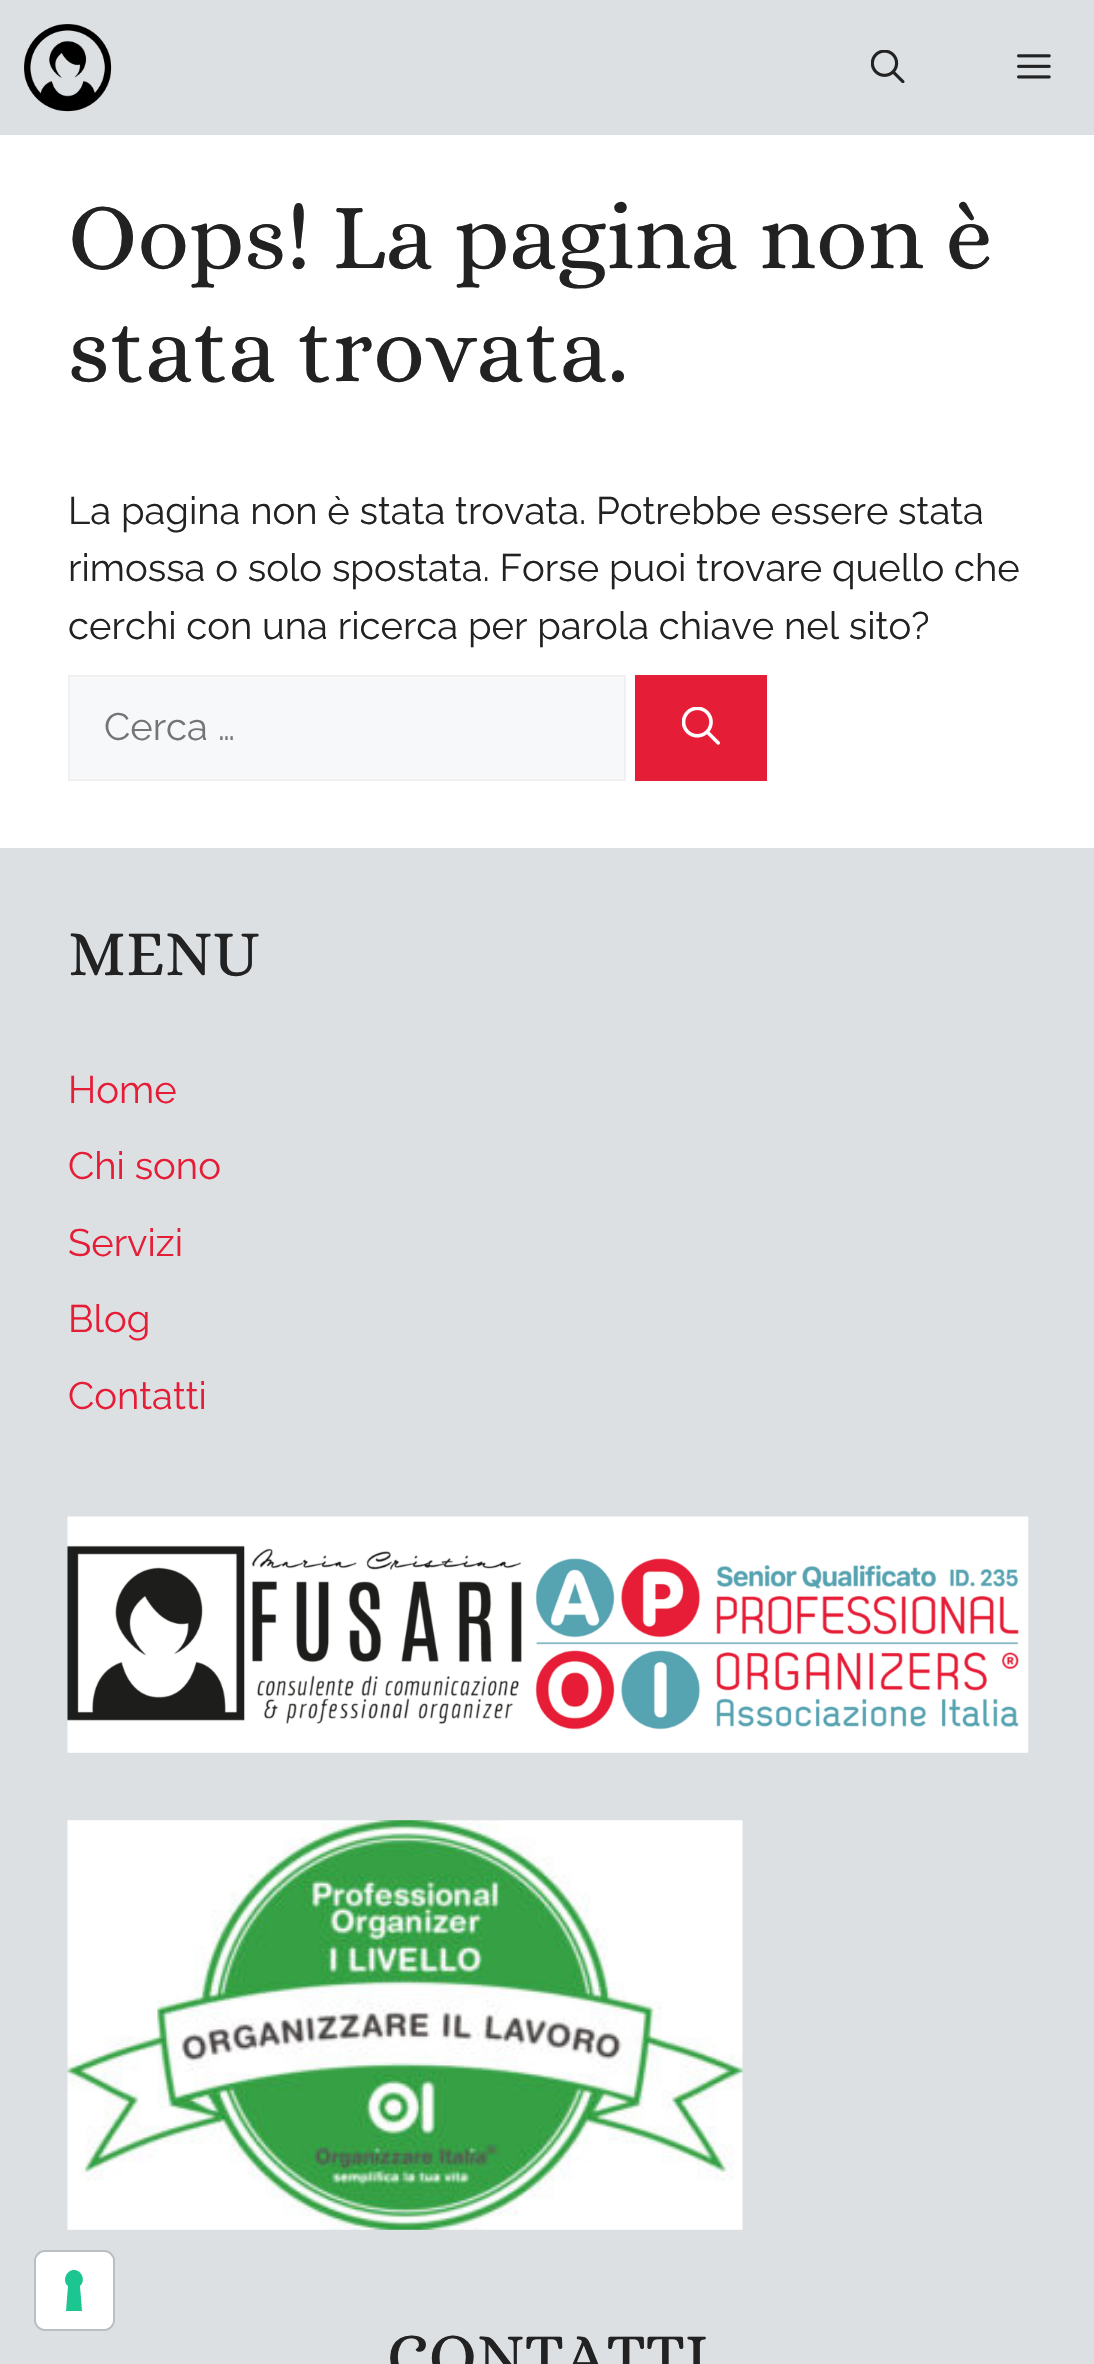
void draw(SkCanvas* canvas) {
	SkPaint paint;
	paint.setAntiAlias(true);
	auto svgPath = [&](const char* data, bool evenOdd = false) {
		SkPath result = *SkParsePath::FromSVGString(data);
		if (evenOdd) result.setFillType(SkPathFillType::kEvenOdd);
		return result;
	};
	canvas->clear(0xffffffff);
	paint.setColor(0xffdce0e3);
	canvas->drawRect(SkRect::MakeXYWH(0, 0, 1094, 135), paint);
	canvas->drawImageRect(SkImages::DeferredFromEncodedData(SkData::MakeFromFileName("img1.png")), SkRect::MakeXYWH(24, 24, 88, 88), SkSamplingOptions());
	canvas->drawImageRect(SkImages::DeferredFromEncodedData(SkData::MakeFromFileName("img2.png")), SkRect::MakeXYWH(871, 50, 34, 33), SkSamplingOptions());
	canvas->drawImageRect(SkImages::DeferredFromEncodedData(SkData::MakeFromFileName("img3.png")), SkRect::MakeXYWH(1017, 54, 34, 25), SkSamplingOptions());
	SkFont f1(fontMgr->matchFamilyStyle("Alice", SkFontStyle::Normal()), 94.5);
	f1.setSubpixel(true);
	paint.setColor(0xff222222);
	canvas->drawString("Oops! La pagina non è", 68, 268, f1, paint);
	canvas->drawString("stata trovata.", 68, 381, f1, paint);
	SkFont f2(fontMgr->matchFamilyStyle("Raleway", SkFontStyle::Normal()), 38.25);
	f2.setSubpixel(true);
	canvas->drawString("La pagina non è stata trovata. Potrebbe essere stata", 68, 524, f2, paint);
	canvas->drawString("rimossa o solo spostata. Forse puoi trovare quello che", 68, 581, f2, paint);
	canvas->drawString("cerchi con una ricerca per parola chiave nel sito?", 68, 639, f2, paint);
	paint.setColor(0xfff7f8f9);
	canvas->drawRect(SkRect::MakeXYWH(69, 676, 556, 104), paint);
	paint.setStroke(true);
	paint.setStrokeWidth(2);
	paint.setColor(0xfff0f0f0);
	canvas->drawRect(SkRect::MakeXYWH(69, 676, 556, 104), paint);
	paint.setStroke(false);
	paint.setColor(0xff757575);
	canvas->drawString("Cerca …", 104, 740, f2, paint);
	paint.setColor(0xffe61d36);
	canvas->drawRect(SkRect::MakeXYWH(635, 675, 132, 106), paint);
	canvas->drawImageRect(SkImages::DeferredFromEncodedData(SkData::MakeFromFileName("img4.png")), SkRect::MakeXYWH(682, 707, 38, 38), SkSamplingOptions());
	paint.setColor(0xffdce0e3);
	canvas->drawRect(SkRect::MakeXYWH(0, 848, 1094, 1516), paint);
	SkFont f3(fontMgr->matchFamilyStyle("Alice", SkFontStyle::Normal()), 65.25);
	f3.setSubpixel(true);
	paint.setColor(0xff222222);
	canvas->drawString("MENU", 68, 975, f3, paint);
	paint.setColor(0xffe61d36);
	canvas->drawString("Home", 68, 1103, f2, paint);
	canvas->drawString("Chi sono", 68, 1179, f2, paint);
	canvas->drawString("Servizi", 68, 1256, f2, paint);
	canvas->drawString("Blog", 68, 1332, f2, paint);
	canvas->drawString("Contatti", 68, 1409, f2, paint);
	canvas->drawImageRect(SkImages::DeferredFromEncodedData(SkData::MakeFromFileName("img5.png")), SkRect::MakeXYWH(67, 1516, 962, 237), SkSamplingOptions());
	canvas->drawImageRect(SkImages::DeferredFromEncodedData(SkData::MakeFromFileName("img6.png")), SkRect::MakeXYWH(67, 1820, 676, 410), SkSamplingOptions());
	paint.setColor(0xff222222);
	canvas->drawString("CONTATTI", 387, 2378, f3, paint);
	paint.setStroke(true);
	paint.setColor(0xffbbbec1);
	canvas->drawRoundRect(SkRect::MakeXYWH(35, 2251, 79, 79), 10, 10, paint);
	paint.setStroke(false);
	paint.setColor(0xffffffff);
	canvas->drawRoundRect(SkRect::MakeXYWH(36, 2252, 77, 77), 9, 9, paint);
	paint.setColor(0xff1cc691);
	canvas->drawPath(svgPath("M74 2270C82 2270 86 2281 80 2286L82 2311H66L68 2286C62 2281 66 2270 74 2270Z", true), paint);
}
